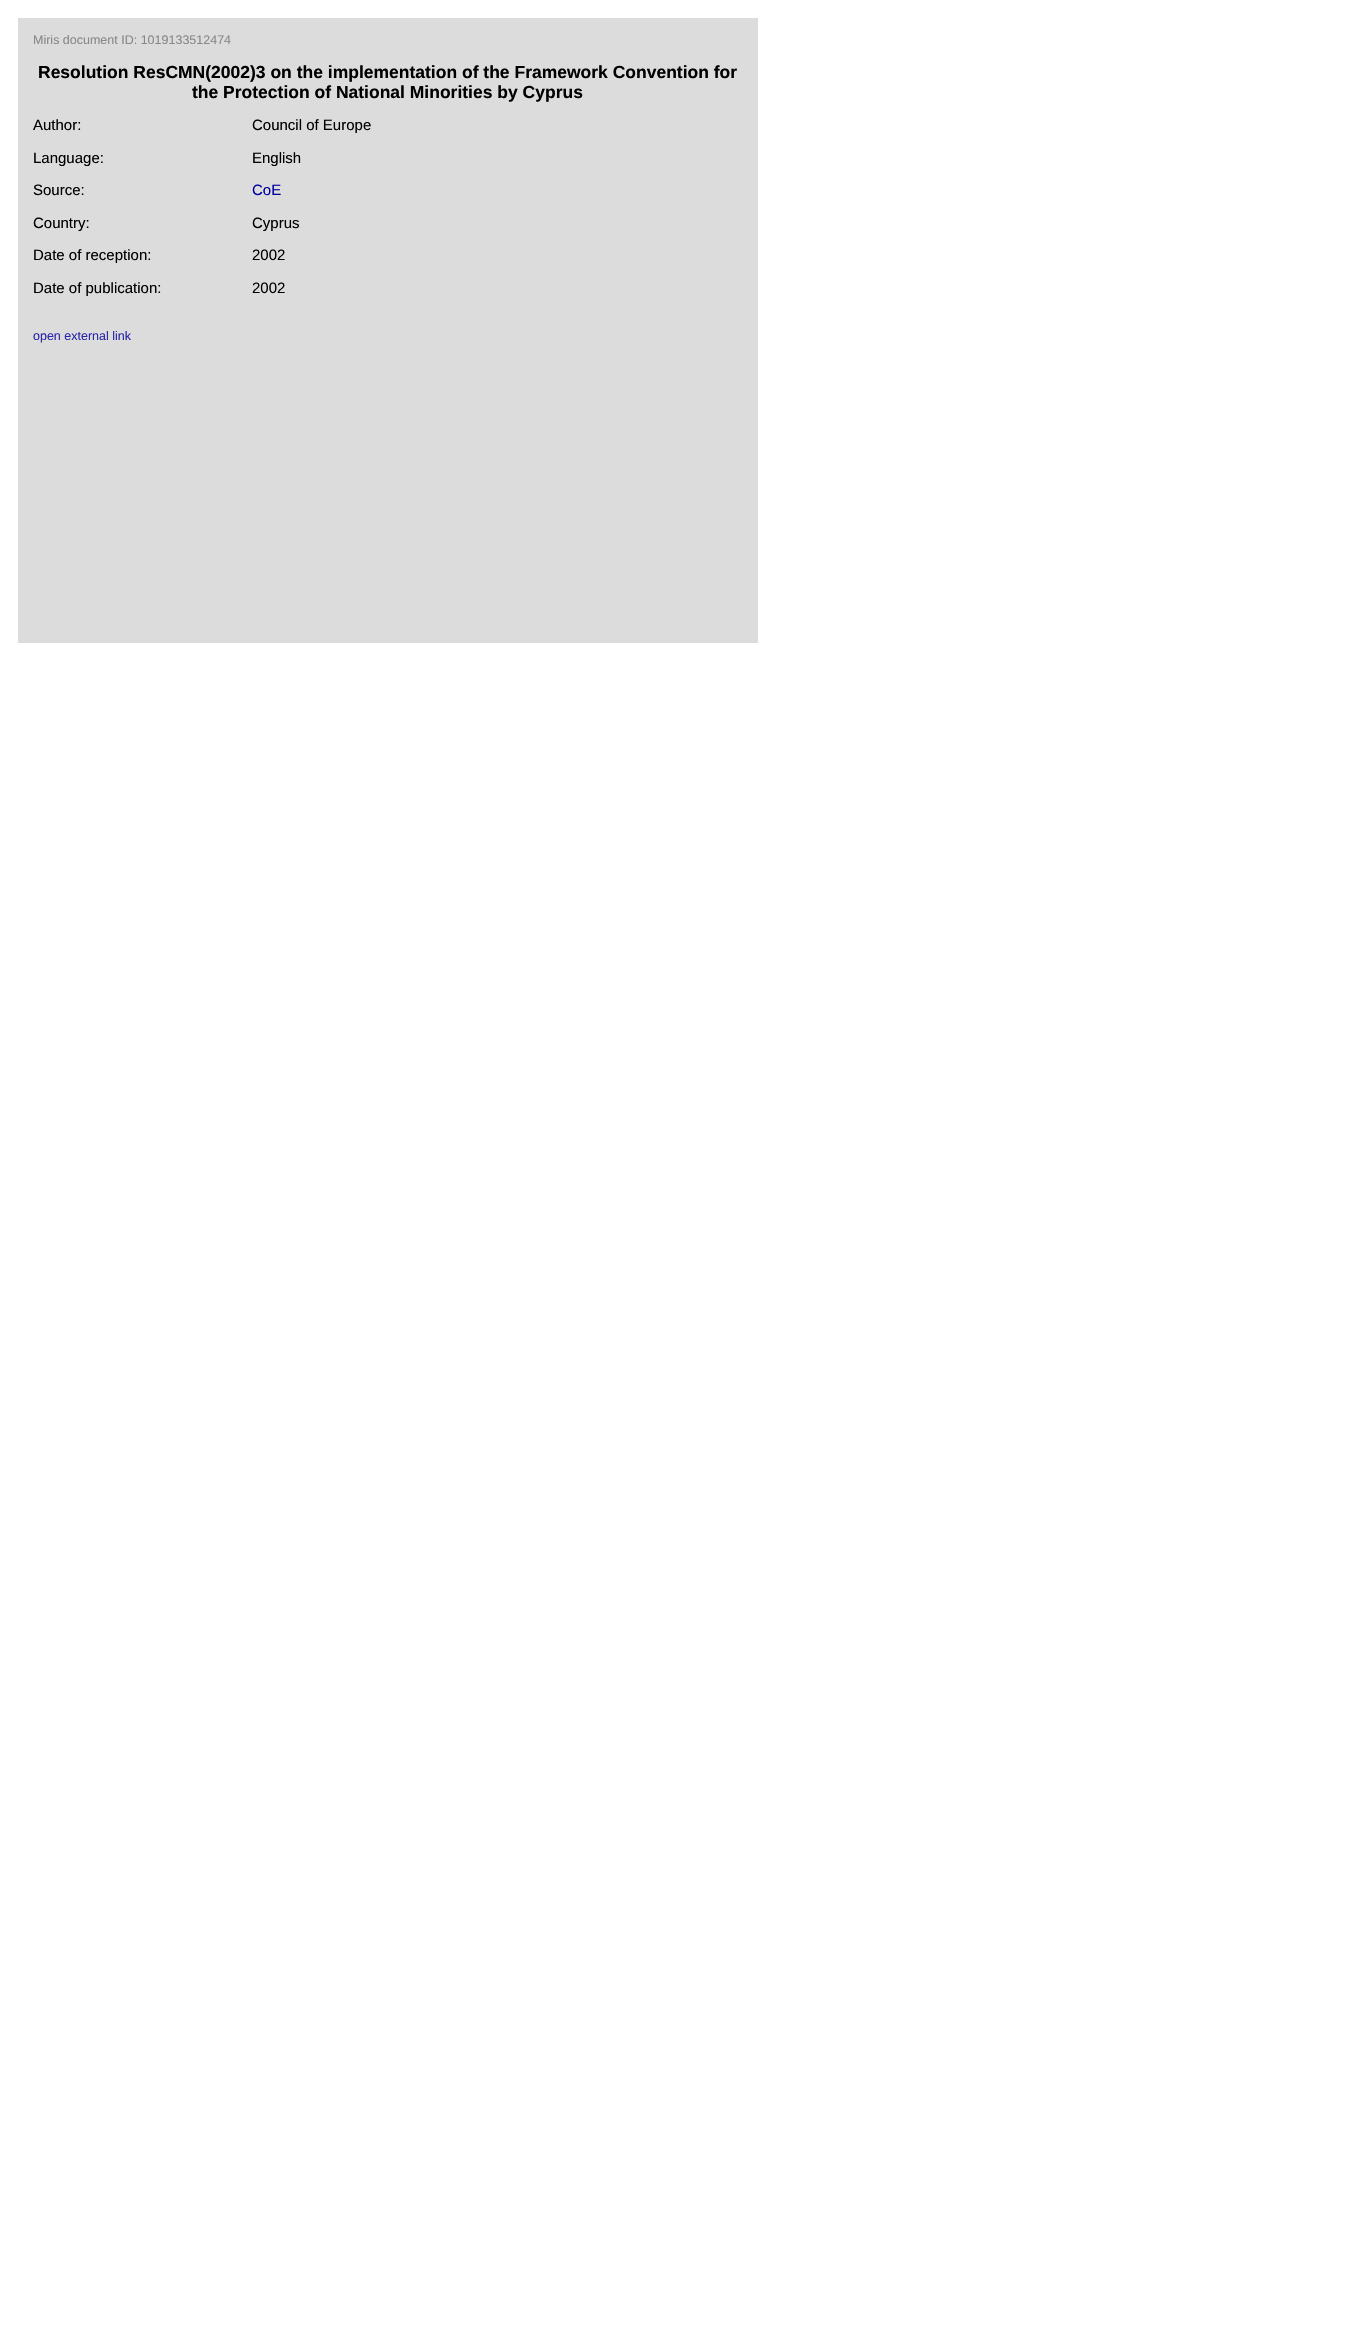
void draw(SkCanvas* canvas) {
	SkPaint paint;
	paint.setAntiAlias(true);
	canvas->clear(0xffffffff);
	paint.setColor(0xffdcdcdc);
	canvas->drawRect(SkRect::MakeXYWH(18, 18, 740, 625), paint);
	SkFont f1(fontMgr->matchFamilyStyle("Liberation Sans", SkFontStyle::Normal()), 12.5);
	f1.setSubpixel(true);
	paint.setColor(0xff888888);
	canvas->drawString("Miris document ID: 1019133512474", 33, 44, f1, paint);
	SkFont f2(fontMgr->matchFamilyStyle("Liberation Sans", SkFontStyle::Bold()), 17.5);
	f2.setSubpixel(true);
	paint.setColor(0xff000000);
	canvas->drawString("Resolution ResCMN(2002)3 on the implementation of the Framework Convention for", 38, 78, f2, paint);
	canvas->drawString("the Protection of National Minorities by Cyprus", 192, 98, f2, paint);
	SkFont f3(fontMgr->matchFamilyStyle("Liberation Sans", SkFontStyle::Normal()), 15);
	f3.setSubpixel(true);
	canvas->drawString("Author:", 33, 130, f3, paint);
	canvas->drawString("Council of Europe", 252, 130, f3, paint);
	canvas->drawString("Language:", 33, 163, f3, paint);
	canvas->drawString("English", 252, 163, f3, paint);
	canvas->drawString("Source:", 33, 195, f3, paint);
	paint.setColor(0xff0000a0);
	canvas->drawString("CoE", 252, 195, f3, paint);
	paint.setColor(0xff000000);
	canvas->drawString("Country:", 33, 228, f3, paint);
	canvas->drawString("Cyprus", 252, 228, f3, paint);
	canvas->drawString("Date of reception:", 33, 260, f3, paint);
	canvas->drawString("2002", 252, 260, f3, paint);
	canvas->drawString("Date of publication:", 33, 293, f3, paint);
	canvas->drawString("2002", 252, 293, f3, paint);
	paint.setColor(0xff2a27a6);
	canvas->drawString("open external link", 33, 340, f1, paint);
}
